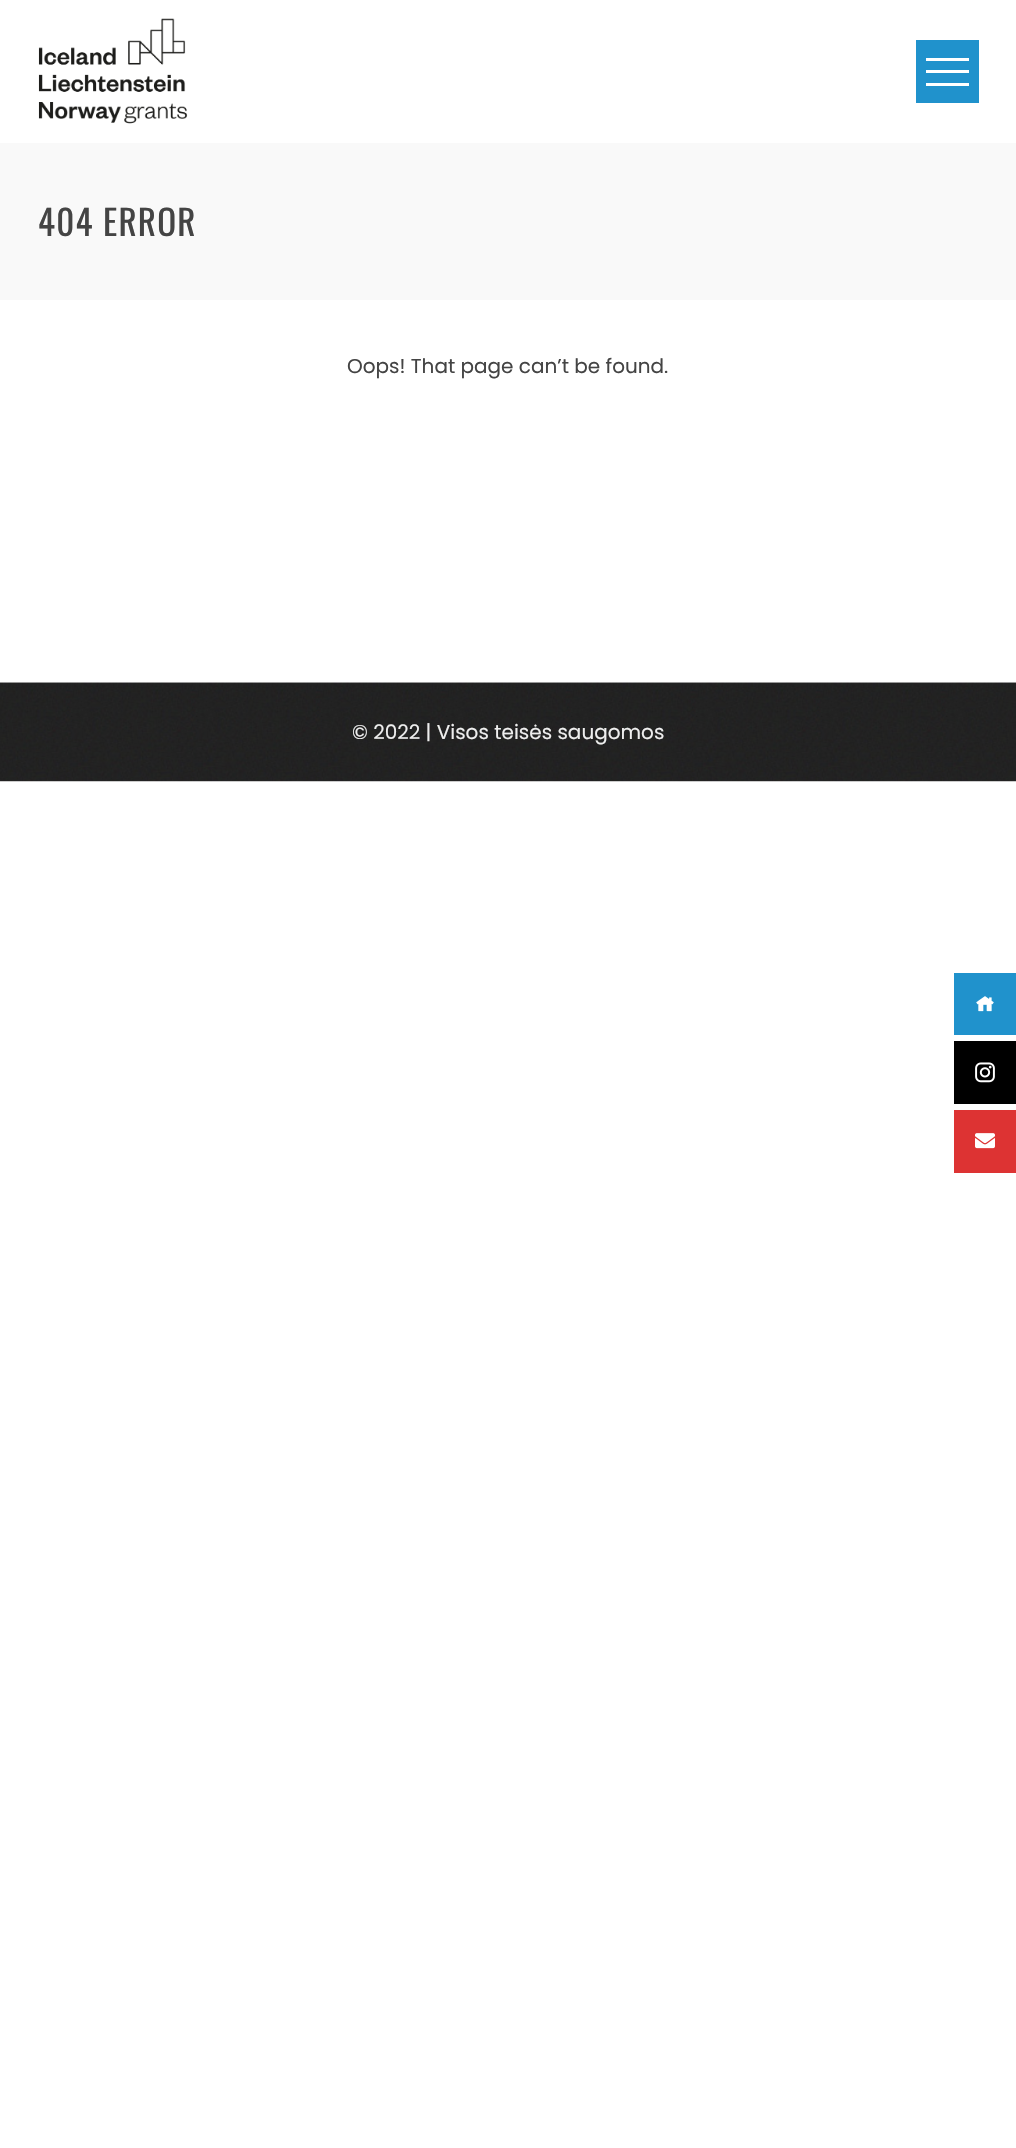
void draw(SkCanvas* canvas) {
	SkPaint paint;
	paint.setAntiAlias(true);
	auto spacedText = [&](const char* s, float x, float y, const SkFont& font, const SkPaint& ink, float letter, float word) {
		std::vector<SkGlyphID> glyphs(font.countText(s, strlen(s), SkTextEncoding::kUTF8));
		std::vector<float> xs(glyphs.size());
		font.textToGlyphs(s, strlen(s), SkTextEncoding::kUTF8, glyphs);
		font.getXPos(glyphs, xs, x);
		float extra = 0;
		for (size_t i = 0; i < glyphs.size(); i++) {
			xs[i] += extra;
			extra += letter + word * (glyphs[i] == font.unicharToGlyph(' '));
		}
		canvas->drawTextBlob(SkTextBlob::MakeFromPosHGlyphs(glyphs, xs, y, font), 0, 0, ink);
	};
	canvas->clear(0xffffffff);
	canvas->drawImageRect(SkImages::DeferredFromEncodedData(SkData::MakeFromFileName("img1.png")), SkRect::MakeXYWH(38, 18, 150, 106), SkSamplingOptions());
	paint.setColor(0xff2092cc);
	canvas->drawRect(SkRect::MakeXYWH(916, 40, 63, 63), paint);
	paint.setColor(0xffffffff);
	canvas->drawRect(SkRect::MakeXYWH(926, 58, 43, 3), paint);
	canvas->drawRect(SkRect::MakeXYWH(926, 83, 43, 3), paint);
	canvas->drawRect(SkRect::MakeXYWH(926, 70, 43, 3), paint);
	paint.setColor(0xfff9f9f9);
	canvas->drawRect(SkRect::MakeXYWH(0, 143, 1016, 157), paint);
	SkFont f1(fontMgr->matchFamilyStyle("Oswald", SkFontStyle::Normal()), 35);
	f1.setSubpixel(true);
	paint.setColor(0xff444444);
	spacedText("404 ERROR", 38, 236, f1, paint, 1.25, 0);
	SkFont f2(fontMgr->matchFamilyStyle("Poppins", SkFontStyle::Normal()), 20);
	f2.setSubpixel(true);
	canvas->drawString("Oops! That page can’t be found.", 347, 373, f2, paint);
	canvas->drawImageRect(SkImages::DeferredFromEncodedData(SkData::MakeFromFileName("img2.png")), SkRect::MakeXYWH(0, 682, 1016, 100), SkSamplingOptions());
	paint.setColor(0xffeeeeee);
	canvas->drawString("© 2022 | Visos teisės saugomos", 352, 739, f2, paint);
	paint.setColor(0xff2092cc);
	canvas->drawRect(SkRect::MakeXYWH(954, 973, 62, 62), paint);
	canvas->drawImageRect(SkImages::DeferredFromEncodedData(SkData::MakeFromFileName("img3.png")), SkRect::MakeXYWH(976, 996, 18, 16), SkSamplingOptions());
	paint.setColor(0xff000000);
	canvas->drawRect(SkRect::MakeXYWH(954, 1041, 62, 63), paint);
	canvas->drawImageRect(SkImages::DeferredFromEncodedData(SkData::MakeFromFileName("img4.png")), SkRect::MakeXYWH(975, 1062, 20, 21), SkSamplingOptions());
	paint.setColor(0xffdd3333);
	canvas->drawRect(SkRect::MakeXYWH(954, 1110, 62, 63), paint);
	canvas->drawImageRect(SkImages::DeferredFromEncodedData(SkData::MakeFromFileName("img5.png")), SkRect::MakeXYWH(975, 1133, 20, 16), SkSamplingOptions());
}
